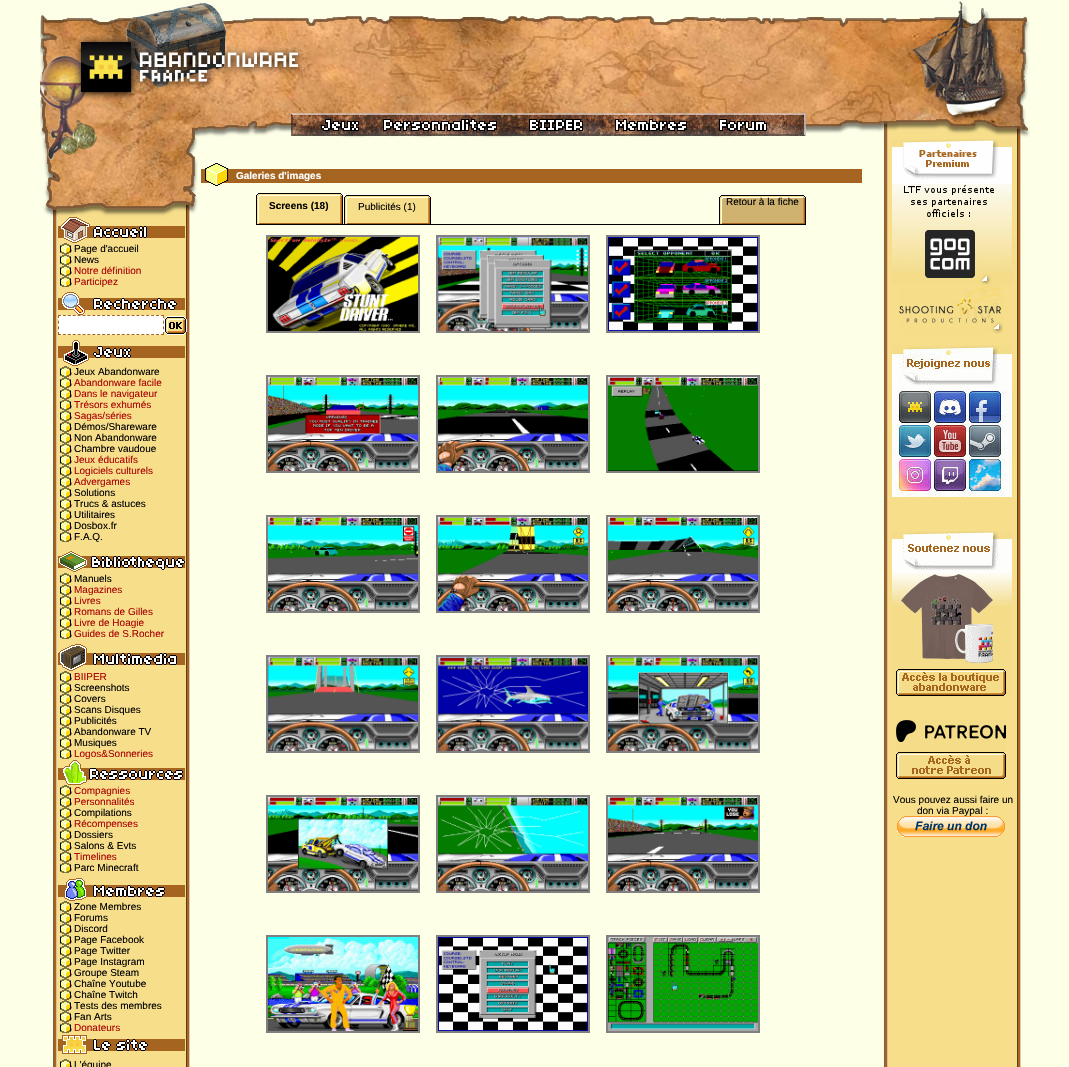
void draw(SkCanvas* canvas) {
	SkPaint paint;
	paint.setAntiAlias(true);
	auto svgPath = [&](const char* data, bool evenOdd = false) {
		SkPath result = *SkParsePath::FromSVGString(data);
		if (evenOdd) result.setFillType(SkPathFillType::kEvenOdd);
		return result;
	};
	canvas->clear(0xfffdffe7);
	canvas->drawImageRect(SkImages::DeferredFromEncodedData(SkData::MakeFromFileName("img1.png")), SkRect::MakeXYWH(40, 0, 990, 138), SkSamplingOptions());
	canvas->drawImageRect(SkImages::DeferredFromEncodedData(SkData::MakeFromFileName("img2.png")), SkRect::MakeXYWH(201, 163, 661, 23), SkSamplingOptions());
	SkFont f1(fontMgr->matchFamilyStyle("Liberation Sans", SkFontStyle::Bold()), 10);
	f1.setSubpixel(true);
	paint.setColor(0xffffffff);
	canvas->drawString("Galeries d'images", 236, 179, f1, paint);
	paint.setColor(0xff000000);
	canvas->drawRect(SkRect::MakeXYWH(256, 224, 550, 1), paint);
	canvas->drawImageRect(SkImages::DeferredFromEncodedData(SkData::MakeFromFileName("img3.png")), SkRect::MakeXYWH(256, 193, 87, 31), SkSamplingOptions());
	canvas->drawString("Screens (18)", 269, 209, f1, paint);
	canvas->drawImageRect(SkImages::DeferredFromEncodedData(SkData::MakeFromFileName("img4.png")), SkRect::MakeXYWH(344, 194, 87, 30), SkSamplingOptions());
	SkFont f2(fontMgr->matchFamilyStyle("Liberation Sans", SkFontStyle::Normal()), 10);
	f2.setSubpixel(true);
	canvas->drawString("Publicités (1)", 358, 210, f2, paint);
	canvas->drawImageRect(SkImages::DeferredFromEncodedData(SkData::MakeFromFileName("img5.png")), SkRect::MakeXYWH(719, 194, 87, 30), SkSamplingOptions());
	canvas->drawString("Retour à la fiche", 726, 205, f2, paint);
	paint.setStroke(true);
	paint.setStrokeWidth(2);
	paint.setColor(0xff808080);
	canvas->drawRect(SkRect::MakeXYWH(267, 236, 152, 96), paint);
	canvas->drawImageRect(SkImages::DeferredFromEncodedData(SkData::MakeFromFileName("img6.png")), SkRect::MakeXYWH(268, 237, 150, 94), SkSamplingOptions());
	canvas->drawRect(SkRect::MakeXYWH(437, 236, 152, 96), paint);
	canvas->drawImageRect(SkImages::DeferredFromEncodedData(SkData::MakeFromFileName("img7.png")), SkRect::MakeXYWH(438, 237, 150, 94), SkSamplingOptions());
	canvas->drawRect(SkRect::MakeXYWH(607, 236, 152, 96), paint);
	canvas->drawImageRect(SkImages::DeferredFromEncodedData(SkData::MakeFromFileName("img8.png")), SkRect::MakeXYWH(608, 237, 150, 94), SkSamplingOptions());
	canvas->drawRect(SkRect::MakeXYWH(267, 376, 152, 96), paint);
	canvas->drawImageRect(SkImages::DeferredFromEncodedData(SkData::MakeFromFileName("img9.png")), SkRect::MakeXYWH(268, 377, 150, 94), SkSamplingOptions());
	canvas->drawRect(SkRect::MakeXYWH(437, 376, 152, 96), paint);
	canvas->drawImageRect(SkImages::DeferredFromEncodedData(SkData::MakeFromFileName("img10.png")), SkRect::MakeXYWH(438, 377, 150, 94), SkSamplingOptions());
	canvas->drawRect(SkRect::MakeXYWH(607, 376, 152, 96), paint);
	canvas->drawImageRect(SkImages::DeferredFromEncodedData(SkData::MakeFromFileName("img11.png")), SkRect::MakeXYWH(608, 377, 150, 94), SkSamplingOptions());
	canvas->drawRect(SkRect::MakeXYWH(267, 516, 152, 96), paint);
	canvas->drawImageRect(SkImages::DeferredFromEncodedData(SkData::MakeFromFileName("img12.png")), SkRect::MakeXYWH(268, 517, 150, 94), SkSamplingOptions());
	canvas->drawRect(SkRect::MakeXYWH(437, 516, 152, 96), paint);
	canvas->drawImageRect(SkImages::DeferredFromEncodedData(SkData::MakeFromFileName("img13.png")), SkRect::MakeXYWH(438, 517, 150, 94), SkSamplingOptions());
	canvas->drawRect(SkRect::MakeXYWH(607, 516, 152, 96), paint);
	canvas->drawImageRect(SkImages::DeferredFromEncodedData(SkData::MakeFromFileName("img14.png")), SkRect::MakeXYWH(608, 517, 150, 94), SkSamplingOptions());
	canvas->drawRect(SkRect::MakeXYWH(267, 656, 152, 96), paint);
	canvas->drawImageRect(SkImages::DeferredFromEncodedData(SkData::MakeFromFileName("img15.png")), SkRect::MakeXYWH(268, 657, 150, 94), SkSamplingOptions());
	canvas->drawRect(SkRect::MakeXYWH(437, 656, 152, 96), paint);
	canvas->drawImageRect(SkImages::DeferredFromEncodedData(SkData::MakeFromFileName("img16.png")), SkRect::MakeXYWH(438, 657, 150, 94), SkSamplingOptions());
	canvas->drawRect(SkRect::MakeXYWH(607, 656, 152, 96), paint);
	canvas->drawImageRect(SkImages::DeferredFromEncodedData(SkData::MakeFromFileName("img17.png")), SkRect::MakeXYWH(608, 657, 150, 94), SkSamplingOptions());
	canvas->drawRect(SkRect::MakeXYWH(267, 796, 152, 96), paint);
	canvas->drawImageRect(SkImages::DeferredFromEncodedData(SkData::MakeFromFileName("img18.png")), SkRect::MakeXYWH(268, 797, 150, 94), SkSamplingOptions());
	canvas->drawRect(SkRect::MakeXYWH(437, 796, 152, 96), paint);
	canvas->drawImageRect(SkImages::DeferredFromEncodedData(SkData::MakeFromFileName("img19.png")), SkRect::MakeXYWH(438, 797, 150, 94), SkSamplingOptions());
	canvas->drawRect(SkRect::MakeXYWH(607, 796, 152, 96), paint);
	canvas->drawImageRect(SkImages::DeferredFromEncodedData(SkData::MakeFromFileName("img20.png")), SkRect::MakeXYWH(608, 797, 150, 94), SkSamplingOptions());
	canvas->drawRect(SkRect::MakeXYWH(267, 936, 152, 96), paint);
	canvas->drawImageRect(SkImages::DeferredFromEncodedData(SkData::MakeFromFileName("img21.png")), SkRect::MakeXYWH(268, 937, 150, 94), SkSamplingOptions());
	canvas->drawRect(SkRect::MakeXYWH(437, 936, 152, 96), paint);
	canvas->drawImageRect(SkImages::DeferredFromEncodedData(SkData::MakeFromFileName("img22.png")), SkRect::MakeXYWH(438, 937, 150, 94), SkSamplingOptions());
	canvas->drawRect(SkRect::MakeXYWH(607, 936, 152, 96), paint);
	canvas->drawImageRect(SkImages::DeferredFromEncodedData(SkData::MakeFromFileName("img23.png")), SkRect::MakeXYWH(608, 937, 150, 94), SkSamplingOptions());
	canvas->drawImageRect(SkImages::DeferredFromEncodedData(SkData::MakeFromFileName("img24.png")), SkRect::MakeXYWH(53, 217, 137, 850), SkSamplingOptions());
	canvas->drawImageRect(SkImages::DeferredFromEncodedData(SkData::MakeFromFileName("img25.png")), SkRect::MakeXYWH(42, 138, 156, 79), SkSamplingOptions());
	canvas->drawImageRect(SkImages::DeferredFromEncodedData(SkData::MakeFromFileName("img26.png")), SkRect::MakeXYWH(58, 217, 127, 26), SkSamplingOptions());
	canvas->drawImageRect(SkImages::DeferredFromEncodedData(SkData::MakeFromFileName("img27.png")), SkRect::MakeXYWH(60, 243, 12, 11), SkSamplingOptions());
	paint.setStroke(false);
	paint.setColor(0xff000000);
	canvas->drawString("Page d'accueil", 74, 252, f2, paint);
	canvas->drawImageRect(SkImages::DeferredFromEncodedData(SkData::MakeFromFileName("img27.png")), SkRect::MakeXYWH(60, 254, 12, 11), SkSamplingOptions());
	canvas->drawString("News", 74, 263, f2, paint);
	canvas->drawImageRect(SkImages::DeferredFromEncodedData(SkData::MakeFromFileName("img27.png")), SkRect::MakeXYWH(60, 265, 12, 11), SkSamplingOptions());
	paint.setColor(0xffab0405);
	canvas->drawString("Notre définition", 74, 274, f2, paint);
	canvas->drawImageRect(SkImages::DeferredFromEncodedData(SkData::MakeFromFileName("img27.png")), SkRect::MakeXYWH(60, 276, 12, 11), SkSamplingOptions());
	canvas->drawString("Participez", 74, 285, f2, paint);
	canvas->drawImageRect(SkImages::DeferredFromEncodedData(SkData::MakeFromFileName("img28.png")), SkRect::MakeXYWH(58, 292, 127, 23), SkSamplingOptions());
	paint.setColor(0xffffffff);
	canvas->drawRect(SkRect::MakeXYWH(58, 315, 106, 20), paint);
	paint.setStroke(true);
	paint.setStrokeWidth(1);
	paint.setColor(0xffa56521);
	paint.setPathEffect(SkDashPathEffect::Make({{3, 1.9f}}, 0));
	canvas->drawPath(svgPath("M58 315.5H164"), paint);
	paint.setPathEffect(nullptr);
	paint.setPathEffect(SkDashPathEffect::Make({{3, 2.67f}}, 0));
	canvas->drawPath(svgPath("M163.5 315V335"), paint);
	paint.setPathEffect(nullptr);
	paint.setPathEffect(SkDashPathEffect::Make({{3, 1.9f}}, 0));
	canvas->drawPath(svgPath("M58 334.5H164"), paint);
	paint.setPathEffect(nullptr);
	paint.setPathEffect(SkDashPathEffect::Make({{3, 2.67f}}, 0));
	canvas->drawPath(svgPath("M58.5 315V335"), paint);
	paint.setPathEffect(nullptr);
	canvas->drawImageRect(SkImages::DeferredFromEncodedData(SkData::MakeFromFileName("img29.png")), SkRect::MakeXYWH(164, 316, 23, 19), SkSamplingOptions());
	canvas->drawImageRect(SkImages::DeferredFromEncodedData(SkData::MakeFromFileName("img30.png")), SkRect::MakeXYWH(58, 340, 127, 26), SkSamplingOptions());
	canvas->drawImageRect(SkImages::DeferredFromEncodedData(SkData::MakeFromFileName("img27.png")), SkRect::MakeXYWH(60, 366, 12, 11), SkSamplingOptions());
	paint.setStroke(false);
	paint.setColor(0xff000000);
	canvas->drawString("Jeux Abandonware", 74, 375, f2, paint);
	canvas->drawImageRect(SkImages::DeferredFromEncodedData(SkData::MakeFromFileName("img27.png")), SkRect::MakeXYWH(60, 377, 12, 11), SkSamplingOptions());
	paint.setColor(0xffab0405);
	canvas->drawString("Abandonware facile", 74, 386, f2, paint);
	canvas->drawImageRect(SkImages::DeferredFromEncodedData(SkData::MakeFromFileName("img27.png")), SkRect::MakeXYWH(60, 388, 12, 11), SkSamplingOptions());
	canvas->drawString("Dans le navigateur", 74, 397, f2, paint);
	canvas->drawImageRect(SkImages::DeferredFromEncodedData(SkData::MakeFromFileName("img27.png")), SkRect::MakeXYWH(60, 399, 12, 11), SkSamplingOptions());
	canvas->drawString("Trésors exhumés", 74, 408, f2, paint);
	canvas->drawImageRect(SkImages::DeferredFromEncodedData(SkData::MakeFromFileName("img27.png")), SkRect::MakeXYWH(60, 410, 12, 11), SkSamplingOptions());
	canvas->drawString("Sagas/séries", 74, 419, f2, paint);
	canvas->drawImageRect(SkImages::DeferredFromEncodedData(SkData::MakeFromFileName("img27.png")), SkRect::MakeXYWH(60, 421, 12, 11), SkSamplingOptions());
	paint.setColor(0xff000000);
	canvas->drawString("Démos/Shareware", 74, 430, f2, paint);
	canvas->drawImageRect(SkImages::DeferredFromEncodedData(SkData::MakeFromFileName("img27.png")), SkRect::MakeXYWH(60, 432, 12, 11), SkSamplingOptions());
	canvas->drawString("Non Abandonware", 74, 441, f2, paint);
	canvas->drawImageRect(SkImages::DeferredFromEncodedData(SkData::MakeFromFileName("img27.png")), SkRect::MakeXYWH(60, 443, 12, 11), SkSamplingOptions());
	canvas->drawString("Chambre vaudoue", 74, 452, f2, paint);
	canvas->drawImageRect(SkImages::DeferredFromEncodedData(SkData::MakeFromFileName("img27.png")), SkRect::MakeXYWH(60, 454, 12, 11), SkSamplingOptions());
	paint.setColor(0xffab0405);
	canvas->drawString("Jeux éducatifs", 74, 463, f2, paint);
	canvas->drawImageRect(SkImages::DeferredFromEncodedData(SkData::MakeFromFileName("img27.png")), SkRect::MakeXYWH(60, 465, 12, 11), SkSamplingOptions());
	canvas->drawString("Logiciels culturels", 74, 474, f2, paint);
	canvas->drawImageRect(SkImages::DeferredFromEncodedData(SkData::MakeFromFileName("img27.png")), SkRect::MakeXYWH(60, 476, 12, 11), SkSamplingOptions());
	canvas->drawString("Advergames", 74, 485, f2, paint);
	canvas->drawImageRect(SkImages::DeferredFromEncodedData(SkData::MakeFromFileName("img27.png")), SkRect::MakeXYWH(60, 487, 12, 11), SkSamplingOptions());
	paint.setColor(0xff000000);
	canvas->drawString("Solutions", 74, 496, f2, paint);
	canvas->drawImageRect(SkImages::DeferredFromEncodedData(SkData::MakeFromFileName("img27.png")), SkRect::MakeXYWH(60, 498, 12, 11), SkSamplingOptions());
	canvas->drawString("Trucs & astuces", 74, 507, f2, paint);
	canvas->drawImageRect(SkImages::DeferredFromEncodedData(SkData::MakeFromFileName("img27.png")), SkRect::MakeXYWH(60, 509, 12, 11), SkSamplingOptions());
	canvas->drawString("Utilitaires", 74, 518, f2, paint);
	canvas->drawImageRect(SkImages::DeferredFromEncodedData(SkData::MakeFromFileName("img27.png")), SkRect::MakeXYWH(60, 520, 12, 11), SkSamplingOptions());
	canvas->drawString("Dosbox.fr", 74, 529, f2, paint);
	canvas->drawImageRect(SkImages::DeferredFromEncodedData(SkData::MakeFromFileName("img27.png")), SkRect::MakeXYWH(60, 531, 12, 11), SkSamplingOptions());
	canvas->drawString("F.A.Q.", 74, 540, f2, paint);
	canvas->drawImageRect(SkImages::DeferredFromEncodedData(SkData::MakeFromFileName("img31.png")), SkRect::MakeXYWH(58, 551, 127, 21), SkSamplingOptions());
	canvas->drawImageRect(SkImages::DeferredFromEncodedData(SkData::MakeFromFileName("img27.png")), SkRect::MakeXYWH(60, 573, 12, 11), SkSamplingOptions());
	canvas->drawString("Manuels", 74, 582, f2, paint);
	canvas->drawImageRect(SkImages::DeferredFromEncodedData(SkData::MakeFromFileName("img27.png")), SkRect::MakeXYWH(60, 584, 12, 11), SkSamplingOptions());
	paint.setColor(0xffab0405);
	canvas->drawString("Magazines", 74, 593, f2, paint);
	canvas->drawImageRect(SkImages::DeferredFromEncodedData(SkData::MakeFromFileName("img27.png")), SkRect::MakeXYWH(60, 595, 12, 11), SkSamplingOptions());
	canvas->drawString("Livres", 74, 604, f2, paint);
	canvas->drawImageRect(SkImages::DeferredFromEncodedData(SkData::MakeFromFileName("img27.png")), SkRect::MakeXYWH(60, 606, 12, 11), SkSamplingOptions());
	canvas->drawString("Romans de Gilles", 74, 615, f2, paint);
	canvas->drawImageRect(SkImages::DeferredFromEncodedData(SkData::MakeFromFileName("img27.png")), SkRect::MakeXYWH(60, 617, 12, 11), SkSamplingOptions());
	canvas->drawString("Livre de Hoagie", 74, 626, f2, paint);
	canvas->drawImageRect(SkImages::DeferredFromEncodedData(SkData::MakeFromFileName("img27.png")), SkRect::MakeXYWH(60, 628, 12, 11), SkSamplingOptions());
	canvas->drawString("Guides de S.Rocher", 74, 637, f2, paint);
	canvas->drawImageRect(SkImages::DeferredFromEncodedData(SkData::MakeFromFileName("img32.png")), SkRect::MakeXYWH(58, 644, 127, 27), SkSamplingOptions());
	canvas->drawImageRect(SkImages::DeferredFromEncodedData(SkData::MakeFromFileName("img27.png")), SkRect::MakeXYWH(60, 671, 12, 11), SkSamplingOptions());
	canvas->drawString("BIIPER", 74, 680, f2, paint);
	canvas->drawImageRect(SkImages::DeferredFromEncodedData(SkData::MakeFromFileName("img27.png")), SkRect::MakeXYWH(60, 682, 12, 11), SkSamplingOptions());
	paint.setColor(0xff000000);
	canvas->drawString("Screenshots", 74, 691, f2, paint);
	canvas->drawImageRect(SkImages::DeferredFromEncodedData(SkData::MakeFromFileName("img27.png")), SkRect::MakeXYWH(60, 693, 12, 11), SkSamplingOptions());
	canvas->drawString("Covers", 74, 702, f2, paint);
	canvas->drawImageRect(SkImages::DeferredFromEncodedData(SkData::MakeFromFileName("img27.png")), SkRect::MakeXYWH(60, 704, 12, 11), SkSamplingOptions());
	canvas->drawString("Scans Disques", 74, 713, f2, paint);
	canvas->drawImageRect(SkImages::DeferredFromEncodedData(SkData::MakeFromFileName("img27.png")), SkRect::MakeXYWH(60, 715, 12, 11), SkSamplingOptions());
	canvas->drawString("Publicités", 74, 724, f2, paint);
	canvas->drawImageRect(SkImages::DeferredFromEncodedData(SkData::MakeFromFileName("img27.png")), SkRect::MakeXYWH(60, 726, 12, 11), SkSamplingOptions());
	canvas->drawString("Abandonware TV", 74, 735, f2, paint);
	canvas->drawImageRect(SkImages::DeferredFromEncodedData(SkData::MakeFromFileName("img27.png")), SkRect::MakeXYWH(60, 737, 12, 11), SkSamplingOptions());
	canvas->drawString("Musiques", 74, 746, f2, paint);
	canvas->drawImageRect(SkImages::DeferredFromEncodedData(SkData::MakeFromFileName("img27.png")), SkRect::MakeXYWH(60, 748, 12, 11), SkSamplingOptions());
	paint.setColor(0xffab0405);
	canvas->drawString("Logos&Sonneries", 74, 757, f2, paint);
	canvas->drawImageRect(SkImages::DeferredFromEncodedData(SkData::MakeFromFileName("img33.png")), SkRect::MakeXYWH(58, 760, 127, 25), SkSamplingOptions());
	canvas->drawImageRect(SkImages::DeferredFromEncodedData(SkData::MakeFromFileName("img27.png")), SkRect::MakeXYWH(60, 785, 12, 11), SkSamplingOptions());
	canvas->drawString("Compagnies", 74, 794, f2, paint);
	canvas->drawImageRect(SkImages::DeferredFromEncodedData(SkData::MakeFromFileName("img27.png")), SkRect::MakeXYWH(60, 796, 12, 11), SkSamplingOptions());
	canvas->drawString("Personnalités", 74, 805, f2, paint);
	canvas->drawImageRect(SkImages::DeferredFromEncodedData(SkData::MakeFromFileName("img27.png")), SkRect::MakeXYWH(60, 807, 12, 11), SkSamplingOptions());
	paint.setColor(0xff000000);
	canvas->drawString("Compilations", 74, 816, f2, paint);
	canvas->drawImageRect(SkImages::DeferredFromEncodedData(SkData::MakeFromFileName("img27.png")), SkRect::MakeXYWH(60, 818, 12, 11), SkSamplingOptions());
	paint.setColor(0xffab0405);
	canvas->drawString("Récompenses", 74, 827, f2, paint);
	canvas->drawImageRect(SkImages::DeferredFromEncodedData(SkData::MakeFromFileName("img27.png")), SkRect::MakeXYWH(60, 829, 12, 11), SkSamplingOptions());
	paint.setColor(0xff000000);
	canvas->drawString("Dossiers", 74, 838, f2, paint);
	canvas->drawImageRect(SkImages::DeferredFromEncodedData(SkData::MakeFromFileName("img27.png")), SkRect::MakeXYWH(60, 840, 12, 11), SkSamplingOptions());
	canvas->drawString("Salons & Evts", 74, 849, f2, paint);
	canvas->drawImageRect(SkImages::DeferredFromEncodedData(SkData::MakeFromFileName("img27.png")), SkRect::MakeXYWH(60, 851, 12, 11), SkSamplingOptions());
	paint.setColor(0xffab0405);
	canvas->drawString("Timelines", 74, 860, f2, paint);
	canvas->drawImageRect(SkImages::DeferredFromEncodedData(SkData::MakeFromFileName("img27.png")), SkRect::MakeXYWH(60, 862, 12, 11), SkSamplingOptions());
	paint.setColor(0xff000000);
	canvas->drawString("Parc Minecraft", 74, 871, f2, paint);
	canvas->drawImageRect(SkImages::DeferredFromEncodedData(SkData::MakeFromFileName("img34.png")), SkRect::MakeXYWH(58, 878, 127, 23), SkSamplingOptions());
	canvas->drawImageRect(SkImages::DeferredFromEncodedData(SkData::MakeFromFileName("img27.png")), SkRect::MakeXYWH(60, 901, 12, 11), SkSamplingOptions());
	canvas->drawString("Zone Membres", 74, 910, f2, paint);
	canvas->drawImageRect(SkImages::DeferredFromEncodedData(SkData::MakeFromFileName("img27.png")), SkRect::MakeXYWH(60, 912, 12, 11), SkSamplingOptions());
	canvas->drawString("Forums", 74, 921, f2, paint);
	canvas->drawImageRect(SkImages::DeferredFromEncodedData(SkData::MakeFromFileName("img27.png")), SkRect::MakeXYWH(60, 923, 12, 11), SkSamplingOptions());
	canvas->drawString("Discord", 74, 932, f2, paint);
	canvas->drawImageRect(SkImages::DeferredFromEncodedData(SkData::MakeFromFileName("img27.png")), SkRect::MakeXYWH(60, 934, 12, 11), SkSamplingOptions());
	canvas->drawString("Page Facebook", 74, 943, f2, paint);
	canvas->drawImageRect(SkImages::DeferredFromEncodedData(SkData::MakeFromFileName("img27.png")), SkRect::MakeXYWH(60, 945, 12, 11), SkSamplingOptions());
	canvas->drawString("Page Twitter", 74, 954, f2, paint);
	canvas->drawImageRect(SkImages::DeferredFromEncodedData(SkData::MakeFromFileName("img27.png")), SkRect::MakeXYWH(60, 956, 12, 11), SkSamplingOptions());
	canvas->drawString("Page Instagram", 74, 965, f2, paint);
	canvas->drawImageRect(SkImages::DeferredFromEncodedData(SkData::MakeFromFileName("img27.png")), SkRect::MakeXYWH(60, 967, 12, 11), SkSamplingOptions());
	canvas->drawString("Groupe Steam", 74, 976, f2, paint);
	canvas->drawImageRect(SkImages::DeferredFromEncodedData(SkData::MakeFromFileName("img27.png")), SkRect::MakeXYWH(60, 978, 12, 11), SkSamplingOptions());
	canvas->drawString("Chaîne Youtube", 74, 987, f2, paint);
	canvas->drawImageRect(SkImages::DeferredFromEncodedData(SkData::MakeFromFileName("img27.png")), SkRect::MakeXYWH(60, 989, 12, 11), SkSamplingOptions());
	canvas->drawString("Chaîne Twitch", 74, 998, f2, paint);
	canvas->drawImageRect(SkImages::DeferredFromEncodedData(SkData::MakeFromFileName("img27.png")), SkRect::MakeXYWH(60, 1000, 12, 11), SkSamplingOptions());
	canvas->drawString("Tests des membres", 74, 1009, f2, paint);
	canvas->drawImageRect(SkImages::DeferredFromEncodedData(SkData::MakeFromFileName("img27.png")), SkRect::MakeXYWH(60, 1011, 12, 11), SkSamplingOptions());
	canvas->drawString("Fan Arts", 74, 1020, f2, paint);
	canvas->drawImageRect(SkImages::DeferredFromEncodedData(SkData::MakeFromFileName("img27.png")), SkRect::MakeXYWH(60, 1022, 12, 11), SkSamplingOptions());
	paint.setColor(0xffab0405);
	canvas->drawString("Donateurs", 74, 1031, f2, paint);
	canvas->drawImageRect(SkImages::DeferredFromEncodedData(SkData::MakeFromFileName("img35.png")), SkRect::MakeXYWH(58, 1035, 127, 19), SkSamplingOptions());
	canvas->drawImageRect(SkImages::DeferredFromEncodedData(SkData::MakeFromFileName("img36.png")), SkRect::MakeXYWH(60, 1059, 12, 8), SkSamplingOptions());
	paint.setColor(0xff000000);
	canvas->drawString("L'équipe", 74, 1068, f2, paint);
	canvas->drawImageRect(SkImages::DeferredFromEncodedData(SkData::MakeFromFileName("img37.png")), SkRect::MakeXYWH(884, 138, 137, 929), SkSamplingOptions());
	canvas->drawImageRect(SkImages::DeferredFromEncodedData(SkData::MakeFromFileName("img38.png")), SkRect::MakeXYWH(892, 139, 121, 146), SkSamplingOptions());
	canvas->drawImageRect(SkImages::DeferredFromEncodedData(SkData::MakeFromFileName("img39.png")), SkRect::MakeXYWH(899, 286, 104, 48), SkSamplingOptions());
	canvas->drawImageRect(SkImages::DeferredFromEncodedData(SkData::MakeFromFileName("img40.png")), SkRect::MakeXYWH(892, 345, 120, 45), SkSamplingOptions());
	canvas->drawImageRect(SkImages::DeferredFromEncodedData(SkData::MakeFromFileName("img41.png")), SkRect::MakeXYWH(892, 390, 40, 34), SkSamplingOptions());
	canvas->drawImageRect(SkImages::DeferredFromEncodedData(SkData::MakeFromFileName("img42.png")), SkRect::MakeXYWH(932, 390, 35, 34), SkSamplingOptions());
	canvas->drawImageRect(SkImages::DeferredFromEncodedData(SkData::MakeFromFileName("img43.png")), SkRect::MakeXYWH(967, 390, 48, 34), SkSamplingOptions());
	canvas->drawImageRect(SkImages::DeferredFromEncodedData(SkData::MakeFromFileName("img44.png")), SkRect::MakeXYWH(892, 424, 40, 34), SkSamplingOptions());
	canvas->drawImageRect(SkImages::DeferredFromEncodedData(SkData::MakeFromFileName("img45.png")), SkRect::MakeXYWH(932, 424, 35, 34), SkSamplingOptions());
	canvas->drawImageRect(SkImages::DeferredFromEncodedData(SkData::MakeFromFileName("img46.png")), SkRect::MakeXYWH(967, 424, 48, 34), SkSamplingOptions());
	canvas->drawImageRect(SkImages::DeferredFromEncodedData(SkData::MakeFromFileName("img47.png")), SkRect::MakeXYWH(892, 458, 41, 39), SkSamplingOptions());
	canvas->drawImageRect(SkImages::DeferredFromEncodedData(SkData::MakeFromFileName("img48.png")), SkRect::MakeXYWH(933, 458, 33, 39), SkSamplingOptions());
	canvas->drawImageRect(SkImages::DeferredFromEncodedData(SkData::MakeFromFileName("img49.png")), SkRect::MakeXYWH(966, 458, 47, 39), SkSamplingOptions());
	canvas->drawImageRect(SkImages::DeferredFromEncodedData(SkData::MakeFromFileName("img50.png")), SkRect::MakeXYWH(892, 531, 120, 165), SkSamplingOptions());
	canvas->drawImageRect(SkImages::DeferredFromEncodedData(SkData::MakeFromFileName("img51.png")), SkRect::MakeXYWH(896, 720, 110, 59), SkSamplingOptions());
	canvas->drawString("Vous pouvez aussi faire un", 893, 803, f2, paint);
	canvas->drawString("don via Paypal :", 917, 814, f2, paint);
	canvas->drawImageRect(SkImages::DeferredFromEncodedData(SkData::MakeFromFileName("img52.png")), SkRect::MakeXYWH(897, 816, 108, 21), SkSamplingOptions());
}
